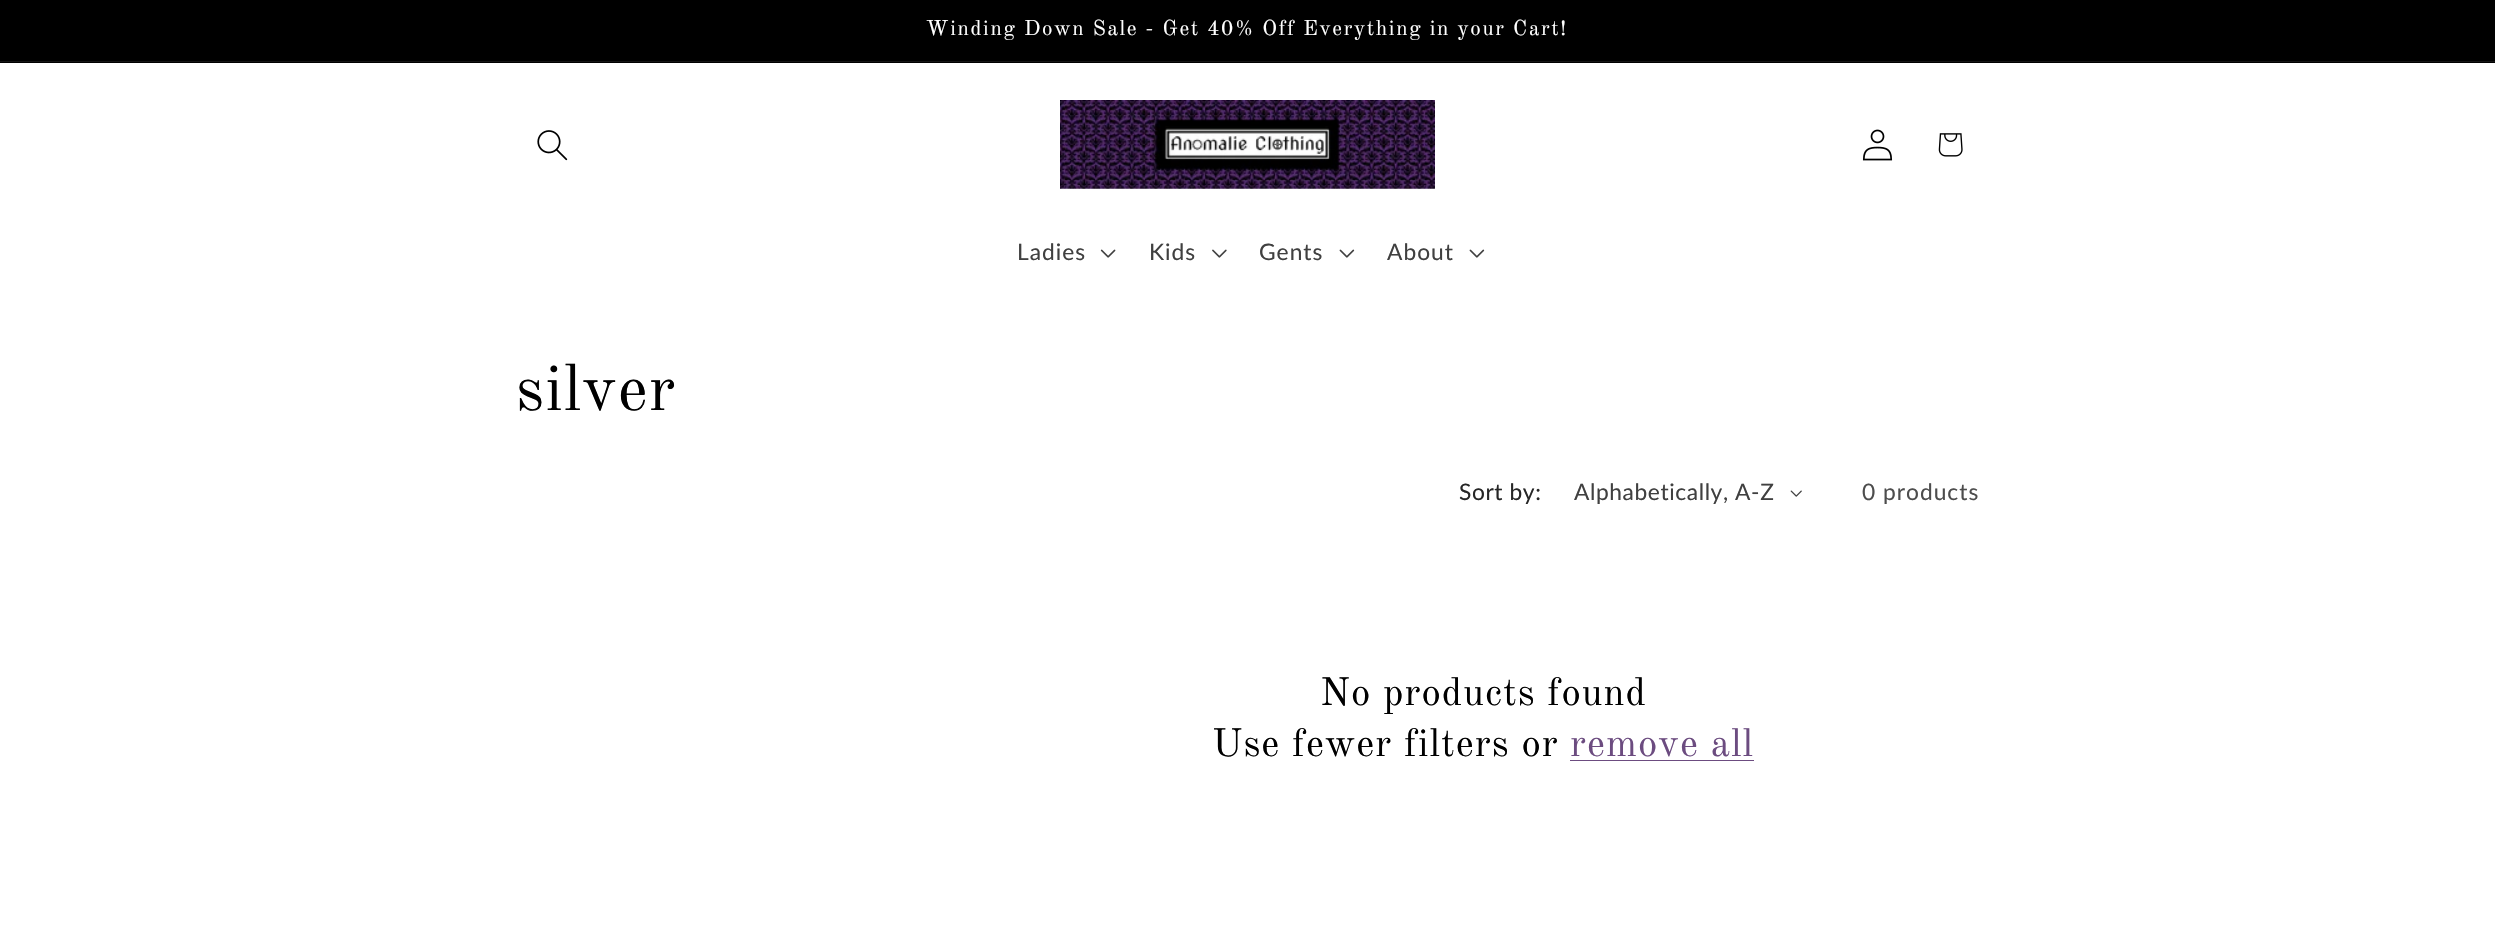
void draw(SkCanvas* canvas) {
	SkPaint paint;
	paint.setAntiAlias(true);
	auto spacedText = [&](const char* s, float x, float y, const SkFont& font, const SkPaint& ink, float letter, float word) {
		std::vector<SkGlyphID> glyphs(font.countText(s, strlen(s), SkTextEncoding::kUTF8));
		std::vector<float> xs(glyphs.size());
		font.textToGlyphs(s, strlen(s), SkTextEncoding::kUTF8, glyphs);
		font.getXPos(glyphs, xs, x);
		float extra = 0;
		for (size_t i = 0; i < glyphs.size(); i++) {
			xs[i] += extra;
			extra += letter + word * (glyphs[i] == font.unicharToGlyph(' '));
		}
		canvas->drawTextBlob(SkTextBlob::MakeFromPosHGlyphs(glyphs, xs, y, font), 0, 0, ink);
	};
	canvas->clear(0xffffffff);
	paint.setColor(0xff000000);
	canvas->drawRect(SkRect::MakeXYWH(0, 0, 2495, 63), paint);
	paint.setColor(0xff141414);
	canvas->drawRect(SkRect::MakeXYWH(0, 61, 2495, 1), paint);
	SkFont f1(fontMgr->matchFamilyStyle("Old Standard TT", SkFontStyle::Normal()), 21.1);
	f1.setSubpixel(true);
	paint.setColor(0xffffffff);
	spacedText("Winding Down Sale - Get 40% Off Everything in your Cart!", 926, 35, f1, paint, 1.62, 0);
	canvas->drawImageRect(SkImages::DeferredFromEncodedData(SkData::MakeFromFileName("img1.png")), SkRect::MakeXYWH(537, 130, 31, 31), SkSamplingOptions());
	canvas->drawImageRect(SkImages::DeferredFromEncodedData(SkData::MakeFromFileName("img2.png")), SkRect::MakeXYWH(1060, 100, 375, 89), SkSamplingOptions());
	canvas->drawImageRect(SkImages::DeferredFromEncodedData(SkData::MakeFromFileName("img3.png")), SkRect::MakeXYWH(1862, 129, 31, 32), SkSamplingOptions());
	canvas->drawImageRect(SkImages::DeferredFromEncodedData(SkData::MakeFromFileName("img4.png")), SkRect::MakeXYWH(1938, 133, 25, 24), SkSamplingOptions());
	SkFont f2(fontMgr->matchFamilyStyle("Lato", SkFontStyle::Normal()), 22.75);
	f2.setSubpixel(true);
	paint.setColor(0xff404040);
	spacedText("Ladies", 1017, 260, f2, paint, 1, 0);
	canvas->drawImageRect(SkImages::DeferredFromEncodedData(SkData::MakeFromFileName("img5.png")), SkRect::MakeXYWH(1100, 249, 16, 9), SkSamplingOptions());
	spacedText("Kids", 1149, 260, f2, paint, 1, 0);
	canvas->drawImageRect(SkImages::DeferredFromEncodedData(SkData::MakeFromFileName("img6.png")), SkRect::MakeXYWH(1212, 249, 15, 9), SkSamplingOptions());
	spacedText("Gents", 1259, 260, f2, paint, 1, 0);
	canvas->drawImageRect(SkImages::DeferredFromEncodedData(SkData::MakeFromFileName("img7.png")), SkRect::MakeXYWH(1339, 249, 16, 9), SkSamplingOptions());
	spacedText("About", 1387, 260, f2, paint, 1, 0);
	canvas->drawImageRect(SkImages::DeferredFromEncodedData(SkData::MakeFromFileName("img7.png")), SkRect::MakeXYWH(1469, 249, 16, 9), SkSamplingOptions());
	SkFont f3(fontMgr->matchFamilyStyle("Old Standard TT", SkFontStyle::Normal()), 65);
	f3.setSubpixel(true);
	paint.setColor(0xff000000);
	spacedText("silver", 516, 410, f3, paint, 1, 0);
	paint.setColor(0xff262626);
	spacedText("Sort by:", 1459, 500, f2, paint, 0.6, 0);
	paint.setColor(0xff404040);
	spacedText("Alphabetically, A-Z", 1574, 500, f2, paint, 0.6, 0);
	canvas->drawImageRect(SkImages::DeferredFromEncodedData(SkData::MakeFromFileName("img8.png")), SkRect::MakeXYWH(1790, 490, 12, 7), SkSamplingOptions());
	paint.setColor(0xff4d4d4d);
	spacedText("0 products", 1862, 500, f2, paint, 1, 0);
	SkFont f4(fontMgr->matchFamilyStyle("Old Standard TT", SkFontStyle::Normal()), 39);
	f4.setSubpixel(true);
	paint.setColor(0xff000000);
	spacedText("No products found", 1320, 705, f4, paint, 1, 0);
	spacedText("Use fewer filters or", 1212, 756, f4, paint, 1, 0);
	paint.setColor(0xff6c4c80);
	spacedText("remove all", 1570, 756, f4, paint, 1, 0);
	canvas->drawRect(SkRect::MakeXYWH(1570, 760, 184, 1), paint);
}
